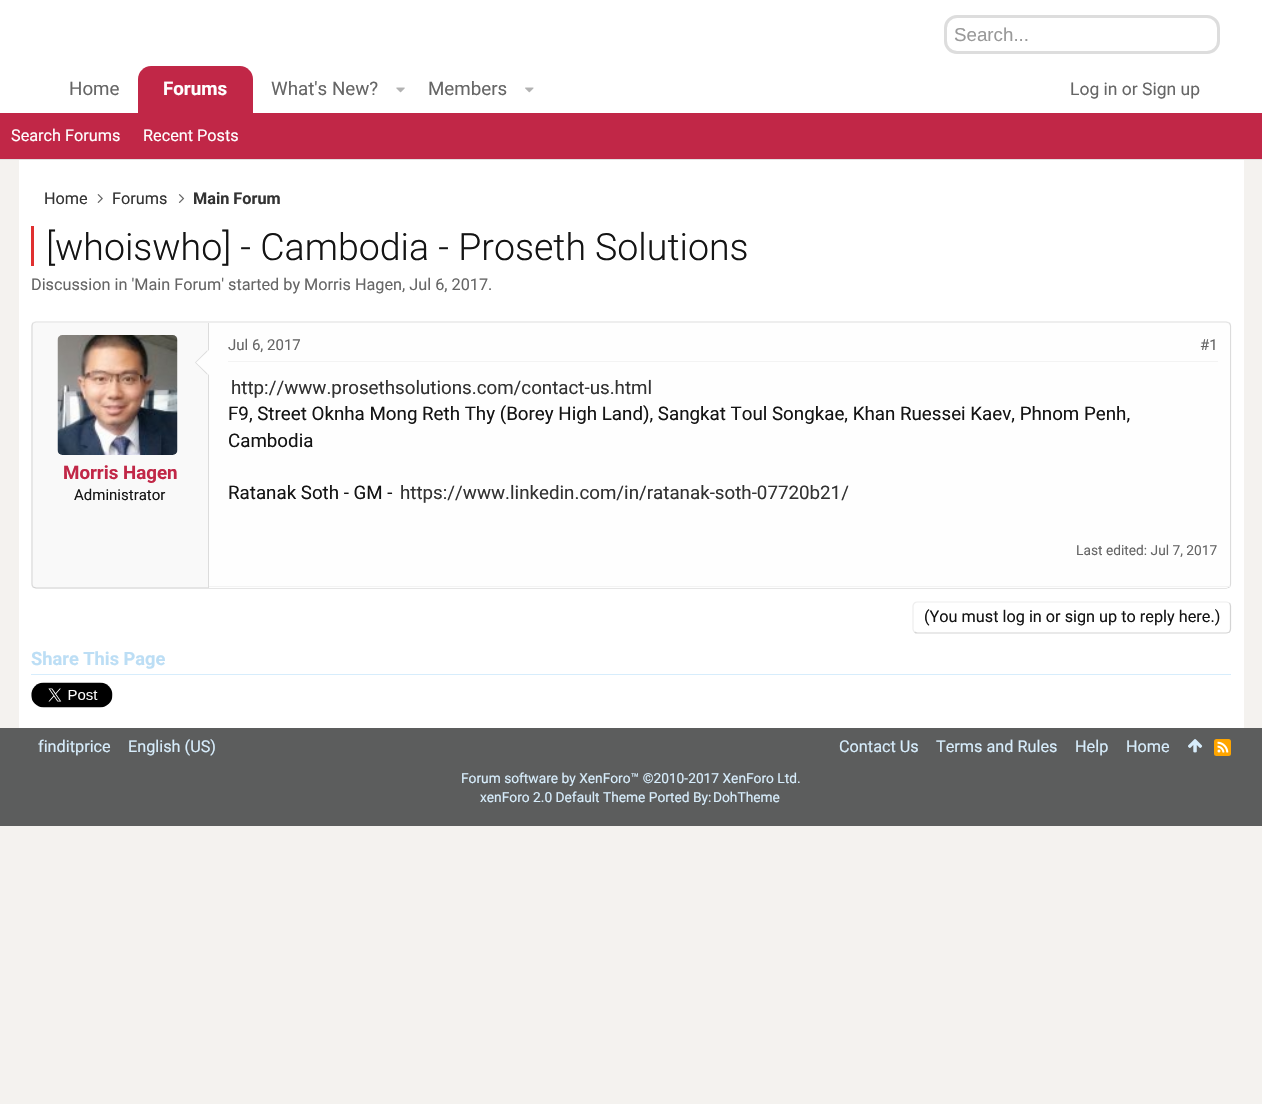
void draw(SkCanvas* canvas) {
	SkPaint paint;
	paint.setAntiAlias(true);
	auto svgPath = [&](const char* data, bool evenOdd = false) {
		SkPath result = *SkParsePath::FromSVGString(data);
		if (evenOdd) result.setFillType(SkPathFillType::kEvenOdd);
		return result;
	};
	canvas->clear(0xfff4f2ef);
	paint.setColor(0xffffffff);
	canvas->drawRect(SkRect::MakeXYWH(0, 0, 1262, 113), paint);
	paint.setStroke(true);
	paint.setStrokeWidth(3);
	paint.setColor(0xffdddddd);
	canvas->drawRoundRect(SkRect::MakeXYWH(945.5, 16.5, 273, 36), 11.5, 11.5, paint);
	SkFont f1(fontMgr->matchFamilyStyle("Liberation Sans", SkFontStyle::Normal()), 18.75);
	f1.setSubpixel(true);
	paint.setStroke(false);
	paint.setColor(0xff999999);
	canvas->drawString("Search...", 954, 41, f1, paint);
	paint.setColor(0xffc12747);
	canvas->drawPath(svgPath("M151 66H240C247 66 253 72 253 79V113H138V79C138 72 144 66 151 66Z"), paint);
	SkFont f2(fontMgr->matchFamilyStyle("Roboto", SkFontStyle::Bold()), 18.75);
	f2.setSubpixel(true);
	paint.setColor(0xffffffff);
	canvas->drawString("Forums", 163, 95, f2, paint);
	paint.setColor(0xffc12747);
	canvas->drawRect(SkRect::MakeXYWH(0, 113, 1262, 46), paint);
	paint.setColor(0xffe1e1e1);
	canvas->drawRect(SkRect::MakeXYWH(0, 159, 1262, 1), paint);
	SkFont f3(fontMgr->matchFamilyStyle("Roboto", SkFontStyle::Normal()), 16.25);
	f3.setSubpixel(true);
	paint.setColor(0xffffffff);
	canvas->drawString("Search Forums", 11, 141, f3, paint);
	canvas->drawString("Recent Posts", 143, 141, f3, paint);
	SkFont f4(fontMgr->matchFamilyStyle("Roboto", SkFontStyle::Normal()), 18.75);
	f4.setSubpixel(true);
	paint.setColor(0xff666666);
	canvas->drawString("What's New?", 271, 95, f4, paint);
	canvas->drawImageRect(SkImages::DeferredFromEncodedData(SkData::MakeFromFileName("img1.png")), SkRect::MakeXYWH(396, 87, 9, 6), SkSamplingOptions());
	canvas->drawString("Members", 428, 95, f4, paint);
	canvas->drawImageRect(SkImages::DeferredFromEncodedData(SkData::MakeFromFileName("img2.png")), SkRect::MakeXYWH(525, 87, 9, 6), SkSamplingOptions());
	canvas->drawString("Home", 69, 95, f4, paint);
	SkFont f5(fontMgr->matchFamilyStyle("Roboto", SkFontStyle::Normal()), 17.5);
	f5.setSubpixel(true);
	canvas->drawString("Log in or Sign up", 1070, 95, f5, paint);
	paint.setColor(0xffffffff);
	canvas->drawRect(SkRect::MakeXYWH(19, 160, 1225, 568), paint);
	paint.setColor(0xff333333);
	canvas->drawString("Home", 44, 204, f3, paint);
	canvas->drawImageRect(SkImages::DeferredFromEncodedData(SkData::MakeFromFileName("img3.png")), SkRect::MakeXYWH(97, 194, 6, 9), SkSamplingOptions());
	canvas->drawString("Forums", 112, 204, f3, paint);
	canvas->drawImageRect(SkImages::DeferredFromEncodedData(SkData::MakeFromFileName("img4.png")), SkRect::MakeXYWH(178, 194, 7, 9), SkSamplingOptions());
	SkFont f6(fontMgr->matchFamilyStyle("Roboto", SkFontStyle::Bold()), 16.25);
	f6.setSubpixel(true);
	canvas->drawString("Main Forum", 193, 204, f6, paint);
	paint.setColor(0xffe03030);
	canvas->drawRect(SkRect::MakeXYWH(31, 226, 3, 40), paint);
	SkFont f7(fontMgr->matchFamilyStyle("Roboto", SkFontStyle(300, SkFontStyle::kNormal_Width, SkFontStyle::kUpright_Slant)), 37.5);
	f7.setSubpixel(true);
	paint.setColor(0xff141414);
	canvas->drawString("[whoiswho] - Cambodia - Proseth Solutions", 46, 260, f7, paint);
	paint.setColor(0xff666666);
	canvas->drawString("Discussion in 'Main Forum' started by Morris Hagen, Jul 6, 2017.", 31, 290, f3, paint);
	paint.setColor(0xfff9f9f9);
	canvas->drawRoundRect(SkRect::MakeXYWH(31, 321, 1200, 268), 5, 5, paint);
	paint.setStroke(true);
	paint.setStrokeWidth(1.2);
	paint.setColor(0xffe4e4e4);
	canvas->drawPath(svgPath("M33 323L36 322H1226L1229.5 323"), paint);
	paint.setColor(0xffdcdcdc);
	canvas->drawPath(svgPath("M1229.5 323C1230 324 1230.5 325 1230.5 326V584C1230.5 585 1230 586 1229.5 587"), paint);
	paint.setColor(0xffd2d2d2);
	canvas->drawPath(svgPath("M1229.5 587L1226 588H36L33 587"), paint);
	paint.setColor(0xffdcdcdc);
	canvas->drawPath(svgPath("M33 587C32.5 586 32 585 32 584V326C32 325 32.5 324 33 323"), paint);
	paint.setStroke(false);
	paint.setColor(0xffffffff);
	canvas->drawRoundRect(SkRect::MakeXYWH(58, 335, 120, 120), 5, 5, paint);
	canvas->drawImageRect(SkImages::DeferredFromEncodedData(SkData::MakeFromFileName("img5.png")), SkRect::MakeXYWH(57, 335, 121, 120), SkSamplingOptions());
	paint.setColor(0xffdcdcdc);
	canvas->drawPath(svgPath("M207.5 350V375L195 362.5Z"), paint);
	paint.setColor(0xfffefefe);
	canvas->drawPath(svgPath("M208 323H1226C1228 323 1230 325 1230 327V584C1230 586 1228 588 1226 588H208Z"), paint);
	paint.setColor(0xfff3f3f3);
	canvas->drawRect(SkRect::MakeXYWH(208, 586, 1022, 1), paint);
	paint.setColor(0xffdcdcdc);
	canvas->drawRect(SkRect::MakeXYWH(208, 323, 1, 265), paint);
	paint.setColor(0xfffefefe);
	canvas->drawPath(svgPath("M210 349V376L196 362.5Z"), paint);
	paint.setColor(0xffc12747);
	canvas->drawString("Morris Hagen", 63, 479, f2, paint);
	SkFont f8(fontMgr->matchFamilyStyle("Roboto", SkFontStyle::Normal()), 15);
	f8.setSubpixel(true);
	paint.setColor(0xff141414);
	canvas->drawString("Administrator", 74, 500, f8, paint);
	paint.setColor(0xfff3f3f3);
	canvas->drawRect(SkRect::MakeXYWH(228, 361, 990, 1), paint);
	paint.setColor(0xff666666);
	canvas->drawString("Jul 6, 2017", 228, 350, f8, paint);
	canvas->drawString("#1", 1200, 350, f8, paint);
	paint.setColor(0xff333333);
	canvas->drawString("http://www.prosethsolutions.com/contact-us.html", 231, 394, f4, paint);
	paint.setColor(0xff141414);
	canvas->drawString("F9, Street Oknha Mong Reth Thy (Borey High Land), Sangkat Toul Songkae, Khan Ruessei Kaev, Phnom Penh,", 228, 420, f4, paint);
	canvas->drawString("Cambodia", 228, 447, f4, paint);
	canvas->drawString("Ratanak Soth - GM -", 228, 499, f4, paint);
	paint.setColor(0xff333333);
	canvas->drawString("https://www.linkedin.com/in/ratanak-soth-07720b21/", 400, 499, f4, paint);
	SkFont f9(fontMgr->matchFamilyStyle("Roboto", SkFontStyle::Normal()), 13.75);
	f9.setSubpixel(true);
	paint.setColor(0xff666666);
	canvas->drawString("Last edited: Jul 7, 2017", 1076, 555, f9, paint);
	paint.setStroke(true);
	paint.setColor(0xffd4d4d4);
	canvas->drawPath(svgPath("M1229.5 603C1230 604 1230.5 605 1230.5 606V629C1230.5 630 1230 631 1229.5 632C1228.5 632.5 1227.5 633 1226 633H917.5C916.5 633 915 632.5 914.5 632"), paint);
	paint.setColor(0xffeeeeee);
	canvas->drawPath(svgPath("M914.5 632C913.5 631 913 630 913 629V606C913 605 913.5 604 914.5 603C915 602.5 916.5 602 917.5 602H1226C1227.5 602 1228.5 602.5 1229.5 603"), paint);
	paint.setStroke(false);
	paint.setColor(0xff141414);
	canvas->drawString("(You must log in or sign up to reply here.)", 924, 622, f3, paint);
	paint.setColor(0xffd7edfc);
	canvas->drawRect(SkRect::MakeXYWH(31, 674, 1200, 1), paint);
	SkFont f10(fontMgr->matchFamilyStyle("Roboto", SkFontStyle::Bold()), 18.25);
	f10.setSubpixel(true);
	paint.setColor(0xffbcdef5);
	canvas->drawString("Share This Page", 31, 665, f10, paint);
	canvas->drawImageRect(SkImages::DeferredFromEncodedData(SkData::MakeFromFileName("img6.png")), SkRect::MakeXYWH(31, 682, 82, 26), SkSamplingOptions());
	paint.setColor(0xff5c5d5d);
	canvas->drawRect(SkRect::MakeXYWH(0, 728, 1262, 98), paint);
	paint.setColor(0xffd7edfc);
	canvas->drawString("finditprice", 38, 752, f3, paint);
	canvas->drawString("English (US)", 128, 752, f3, paint);
	canvas->drawString("Contact Us", 839, 752, f3, paint);
	canvas->drawString("Terms and Rules", 936, 752, f3, paint);
	canvas->drawString("Help", 1075, 752, f3, paint);
	canvas->drawString("Home", 1126, 752, f3, paint);
	canvas->drawImageRect(SkImages::DeferredFromEncodedData(SkData::MakeFromFileName("img7.png")), SkRect::MakeXYWH(1188, 739, 15, 14), SkSamplingOptions());
	paint.setColor(0xffffa500);
	canvas->drawRoundRect(SkRect::MakeXYWH(1214, 739, 17, 17), 2.5, 2.5, paint);
	canvas->drawImageRect(SkImages::DeferredFromEncodedData(SkData::MakeFromFileName("img8.png")), SkRect::MakeXYWH(1217, 741, 12, 12), SkSamplingOptions());
	paint.setColor(0xffd7edfc);
	canvas->drawString("Forum software by XenForo™ ©2010-2017 XenForo Ltd.", 461, 783, f9, paint);
	canvas->drawString("xenForo 2.0 Default Theme Ported By:", 480, 802, f9, paint);
	canvas->drawString("DohTheme", 713, 802, f9, paint);
}
